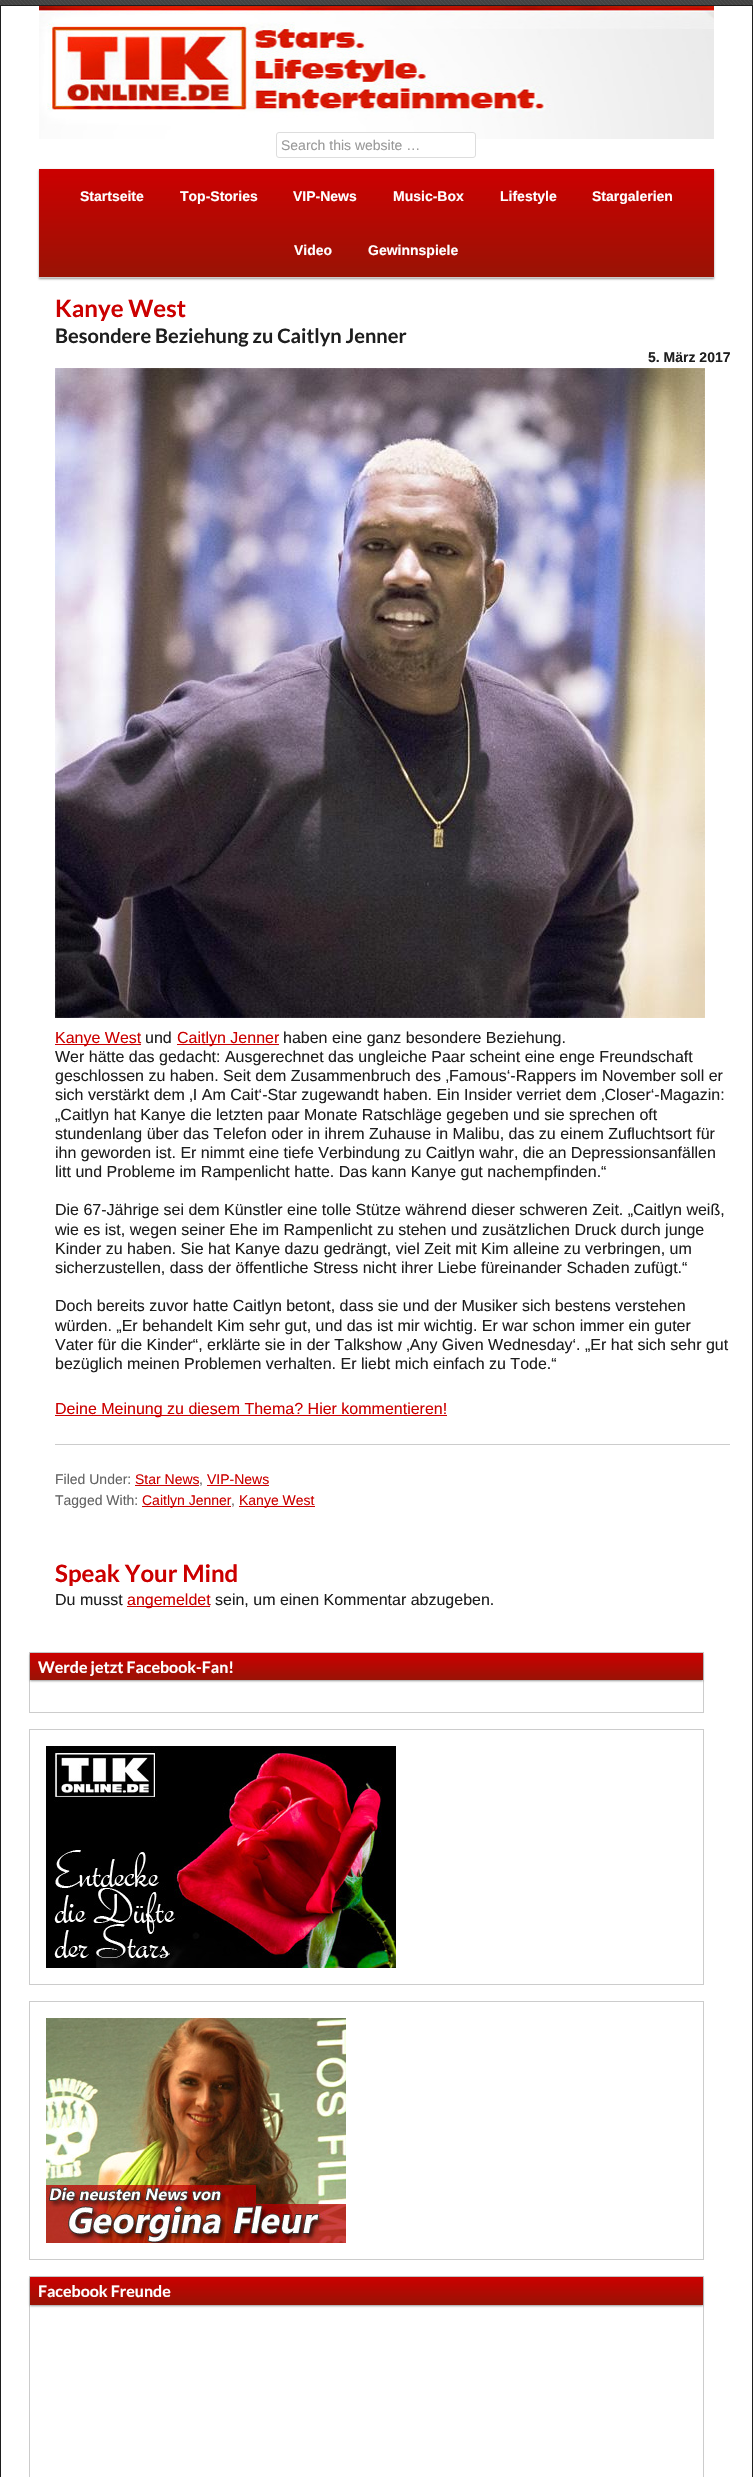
void draw(SkCanvas* canvas) {
	SkPaint paint;
	paint.setAntiAlias(true);
	canvas->clear(0xffffffff);
	canvas->drawImageRect(SkImages::DeferredFromEncodedData(SkData::MakeFromFileName("img1.png")), SkRect::MakeXYWH(0, 0, 753, 5), SkSamplingOptions());
	paint.setStroke(true);
	paint.setStrokeWidth(1);
	paint.setColor(0xff1e1e1e);
	canvas->drawRect(SkRect::MakeXYWH(0.5, 5.5, 752, 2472), paint);
	canvas->drawImageRect(SkImages::DeferredFromEncodedData(SkData::MakeFromFileName("img2.png")), SkRect::MakeXYWH(39, 6, 675, 133), SkSamplingOptions());
	paint.setStroke(false);
	paint.setColor(0xffffffff);
	canvas->drawRoundRect(SkRect::MakeXYWH(276.5, 132.5, 199, 25), 2.5, 2.5, paint);
	paint.setStroke(true);
	paint.setColor(0xffdddddd);
	canvas->drawRoundRect(SkRect::MakeXYWH(276.5, 132.5, 199, 25), 2.5, 2.5, paint);
	SkFont f1(fontMgr->matchFamilyStyle("Liberation Sans", SkFontStyle::Normal()), 14);
	f1.setSubpixel(true);
	paint.setStroke(false);
	paint.setColor(0xff999999);
	canvas->drawString("Search this website …", 281, 150, f1, paint);
	paint.setColor(0x66000000);
	paint.setMaskFilter(SkMaskFilter::MakeBlur(kNormal_SkBlurStyle, 1));
	canvas->drawRect(SkRect::MakeXYWH(39, 170, 675, 109), paint);
	paint.setMaskFilter(nullptr);
	{
		const SkColor colors[] = {0xffcc0000, 0xff991305};
		const float stops[] = {0, 1};
		const SkPoint ends[] = {{377, 169}, {377, 277}};
		paint.setShader(SkGradientShader::MakeLinear(ends, colors, stops, 2, SkTileMode::kClamp));
		paint.setAlpha(255);
	}
	canvas->drawRect(SkRect::MakeXYWH(39, 169, 675, 108), paint);
	paint.setShader(nullptr);
	paint.setColor(0xffcccccc);
	canvas->drawRect(SkRect::MakeXYWH(39, 277, 675, 1), paint);
	SkFont f2(fontMgr->matchFamilyStyle("Liberation Sans", SkFontStyle::Bold()), 14);
	f2.setSubpixel(true);
	paint.setColor(0xffffffff);
	canvas->drawString("Startseite", 80, 201, f2, paint);
	canvas->drawString("Top-Stories", 180, 201, f2, paint);
	canvas->drawString("VIP-News", 293, 201, f2, paint);
	canvas->drawString("Music-Box", 393, 201, f2, paint);
	canvas->drawString("Lifestyle", 500, 201, f2, paint);
	canvas->drawString("Stargalerien", 592, 201, f2, paint);
	canvas->drawString("Video", 294, 255, f2, paint);
	canvas->drawString("Gewinnspiele", 368, 255, f2, paint);
	SkFont f3(fontMgr->matchFamilyStyle("Lato", SkFontStyle::Bold()), 24);
	f3.setSubpixel(true);
	paint.setColor(0xffcc0000);
	canvas->drawString("Kanye West", 55, 317, f3, paint);
	SkFont f4(fontMgr->matchFamilyStyle("Lato", SkFontStyle::Bold()), 20);
	f4.setSubpixel(true);
	paint.setColor(0xff1e1e1e);
	canvas->drawString("Besondere Beziehung zu Caitlyn Jenner", 55, 343, f4, paint);
	canvas->drawString("5. März 2017", 648, 362, f2, paint);
	canvas->drawImageRect(SkImages::DeferredFromEncodedData(SkData::MakeFromFileName("img3.png")), SkRect::MakeXYWH(55, 368, 650, 650), SkSamplingOptions());
	paint.setColor(0xffcc0000);
	canvas->drawRect(SkRect::MakeXYWH(55, 1044, 86, 1), paint);
	SkFont f5(fontMgr->matchFamilyStyle("Liberation Sans", SkFontStyle::Normal()), 16);
	f5.setSubpixel(true);
	canvas->drawString("Kanye West", 55, 1043, f5, paint);
	paint.setColor(0xff1e1e1e);
	canvas->drawString("und", 145, 1043, f5, paint);
	paint.setColor(0xffcc0000);
	canvas->drawRect(SkRect::MakeXYWH(177, 1044, 102, 1), paint);
	canvas->drawString("Caitlyn Jenner", 177, 1043, f5, paint);
	paint.setColor(0xff1e1e1e);
	canvas->drawString("haben eine ganz besondere Beziehung.", 283, 1043, f5, paint);
	canvas->drawString("Wer hätte das gedacht: Ausgerechnet das ungleiche Paar scheint eine enge Freundschaft", 55, 1062, f5, paint);
	canvas->drawString("geschlossen zu haben. Seit dem Zusammenbruch des ‚Famous‘-Rappers im November soll er", 55, 1081, f5, paint);
	canvas->drawString("sich verstärkt dem ‚I Am Cait‘-Star zugewandt haben. Ein Insider verriet dem ‚Closer‘-Magazin:", 55, 1100, f5, paint);
	canvas->drawString("„Caitlyn hat Kanye die letzten paar Monate Ratschläge gegeben und sie sprechen oft", 55, 1120, f5, paint);
	canvas->drawString("stundenlang über das Telefon oder in ihrem Zuhause in Malibu, das zu einem Zufluchtsort für", 55, 1139, f5, paint);
	canvas->drawString("ihn geworden ist. Er nimmt eine tiefe Verbindung zu Caitlyn wahr, die an Depressionsanfällen", 55, 1158, f5, paint);
	canvas->drawString("litt und Probleme im Rampenlicht hatte. Das kann Kanye gut nachempfinden.“", 55, 1177, f5, paint);
	canvas->drawString("Die 67-Jährige sei dem Künstler eine tolle Stütze während dieser schweren Zeit. „Caitlyn weiß,", 55, 1215, f5, paint);
	canvas->drawString("wie es ist, wegen seiner Ehe im Rampenlicht zu stehen und zusätzlichen Druck durch junge", 55, 1235, f5, paint);
	canvas->drawString("Kinder zu haben. Sie hat Kanye dazu gedrängt, viel Zeit mit Kim alleine zu verbringen, um", 55, 1254, f5, paint);
	canvas->drawString("sicherzustellen, dass der öffentliche Stress nicht ihrer Liebe füreinander Schaden zufügt.“", 55, 1273, f5, paint);
	canvas->drawString("Doch bereits zuvor hatte Caitlyn betont, dass sie und der Musiker sich bestens verstehen", 55, 1311, f5, paint);
	canvas->drawString("würden. „Er behandelt Kim sehr gut, und das ist mir wichtig. Er war schon immer ein guter", 55, 1331, f5, paint);
	canvas->drawString("Vater für die Kinder“, erklärte sie in der Talkshow ‚Any Given Wednesday‘. „Er hat sich sehr gut", 55, 1350, f5, paint);
	canvas->drawString("bezüglich meinen Problemen verhalten. Er liebt mich einfach zu Tode.“", 55, 1369, f5, paint);
	paint.setColor(0xffcc0000);
	canvas->drawRect(SkRect::MakeXYWH(55, 1415, 392, 1), paint);
	canvas->drawString("Deine Meinung zu diesem Thema? Hier kommentieren!", 55, 1414, f5, paint);
	paint.setColor(0xffcccccc);
	canvas->drawRect(SkRect::MakeXYWH(55, 1444, 675, 1), paint);
	paint.setColor(0xff636363);
	canvas->drawString("Filed Under:", 55, 1484, f1, paint);
	paint.setColor(0xffcc0000);
	canvas->drawString("Star News", 135, 1484, f1, paint);
	canvas->drawRect(SkRect::MakeXYWH(135, 1485, 64, 1), paint);
	paint.setColor(0xff636363);
	canvas->drawString(",", 199, 1484, f1, paint);
	paint.setColor(0xffcc0000);
	canvas->drawString("VIP-News", 207, 1484, f1, paint);
	canvas->drawRect(SkRect::MakeXYWH(207, 1485, 62, 1), paint);
	paint.setColor(0xff636363);
	canvas->drawString("Tagged With:", 55, 1505, f1, paint);
	paint.setColor(0xffcc0000);
	canvas->drawRect(SkRect::MakeXYWH(142, 1506, 89, 1), paint);
	canvas->drawString("Caitlyn Jenner", 142, 1505, f1, paint);
	paint.setColor(0xff636363);
	canvas->drawString(",", 231, 1505, f1, paint);
	paint.setColor(0xffcc0000);
	canvas->drawRect(SkRect::MakeXYWH(239, 1506, 76, 1), paint);
	canvas->drawString("Kanye West", 239, 1505, f1, paint);
	canvas->drawString("Speak Your Mind", 55, 1582, f3, paint);
	paint.setColor(0xff1e1e1e);
	canvas->drawString("Du musst", 55, 1605, f5, paint);
	paint.setColor(0xffcc0000);
	canvas->drawRect(SkRect::MakeXYWH(127, 1606, 83, 1), paint);
	canvas->drawString("angemeldet", 127, 1605, f5, paint);
	paint.setColor(0xff1e1e1e);
	canvas->drawString("sein, um einen Kommentar abzugeben.", 215, 1605, f5, paint);
	paint.setStroke(true);
	paint.setColor(0xffcccccc);
	canvas->drawRect(SkRect::MakeXYWH(29.5, 1652.5, 674, 60), paint);
	paint.setStroke(false);
	paint.setColor(0x66000000);
	paint.setMaskFilter(SkMaskFilter::MakeBlur(kNormal_SkBlurStyle, 1));
	canvas->drawRect(SkRect::MakeXYWH(30, 1654, 673, 27), paint);
	paint.setMaskFilter(nullptr);
	{
		const SkColor colors[] = {0xffcc0000, 0xff991305};
		const float stops[] = {0, 1};
		const SkPoint ends[] = {{367, 1653}, {367, 1680}};
		paint.setShader(SkGradientShader::MakeLinear(ends, colors, stops, 2, SkTileMode::kClamp));
		paint.setAlpha(255);
	}
	canvas->drawRect(SkRect::MakeXYWH(30, 1653, 673, 27), paint);
	SkFont f6(fontMgr->matchFamilyStyle("Lato", SkFontStyle::Bold()), 16);
	f6.setSubpixel(true);
	paint.setShader(nullptr);
	paint.setColor(0xffffffff);
	canvas->drawString("Werde jetzt Facebook-Fan!", 38, 1673, f6, paint);
	paint.setStroke(true);
	paint.setColor(0xffcccccc);
	canvas->drawRect(SkRect::MakeXYWH(29.5, 1729.5, 674, 255), paint);
	canvas->drawImageRect(SkImages::DeferredFromEncodedData(SkData::MakeFromFileName("img4.png")), SkRect::MakeXYWH(46, 1746, 350, 222), SkSamplingOptions());
	canvas->drawRect(SkRect::MakeXYWH(29.5, 2001.5, 674, 258), paint);
	canvas->drawImageRect(SkImages::DeferredFromEncodedData(SkData::MakeFromFileName("img5.png")), SkRect::MakeXYWH(46, 2018, 300, 225), SkSamplingOptions());
	canvas->drawRect(SkRect::MakeXYWH(29.5, 2276.5, 674, 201), paint);
	paint.setStroke(false);
	paint.setColor(0x66000000);
	paint.setMaskFilter(SkMaskFilter::MakeBlur(kNormal_SkBlurStyle, 1));
	canvas->drawRect(SkRect::MakeXYWH(30, 2278, 673, 28), paint);
	paint.setMaskFilter(nullptr);
	{
		const SkColor colors[] = {0xffcc0000, 0xff991305};
		const float stops[] = {0, 1};
		const SkPoint ends[] = {{367, 2277}, {367, 2305}};
		paint.setShader(SkGradientShader::MakeLinear(ends, colors, stops, 2, SkTileMode::kClamp));
		paint.setAlpha(255);
	}
	canvas->drawRect(SkRect::MakeXYWH(30, 2277, 673, 28), paint);
	paint.setShader(nullptr);
	paint.setColor(0xffffffff);
	canvas->drawString("Facebook Freunde", 38, 2297, f6, paint);
}
